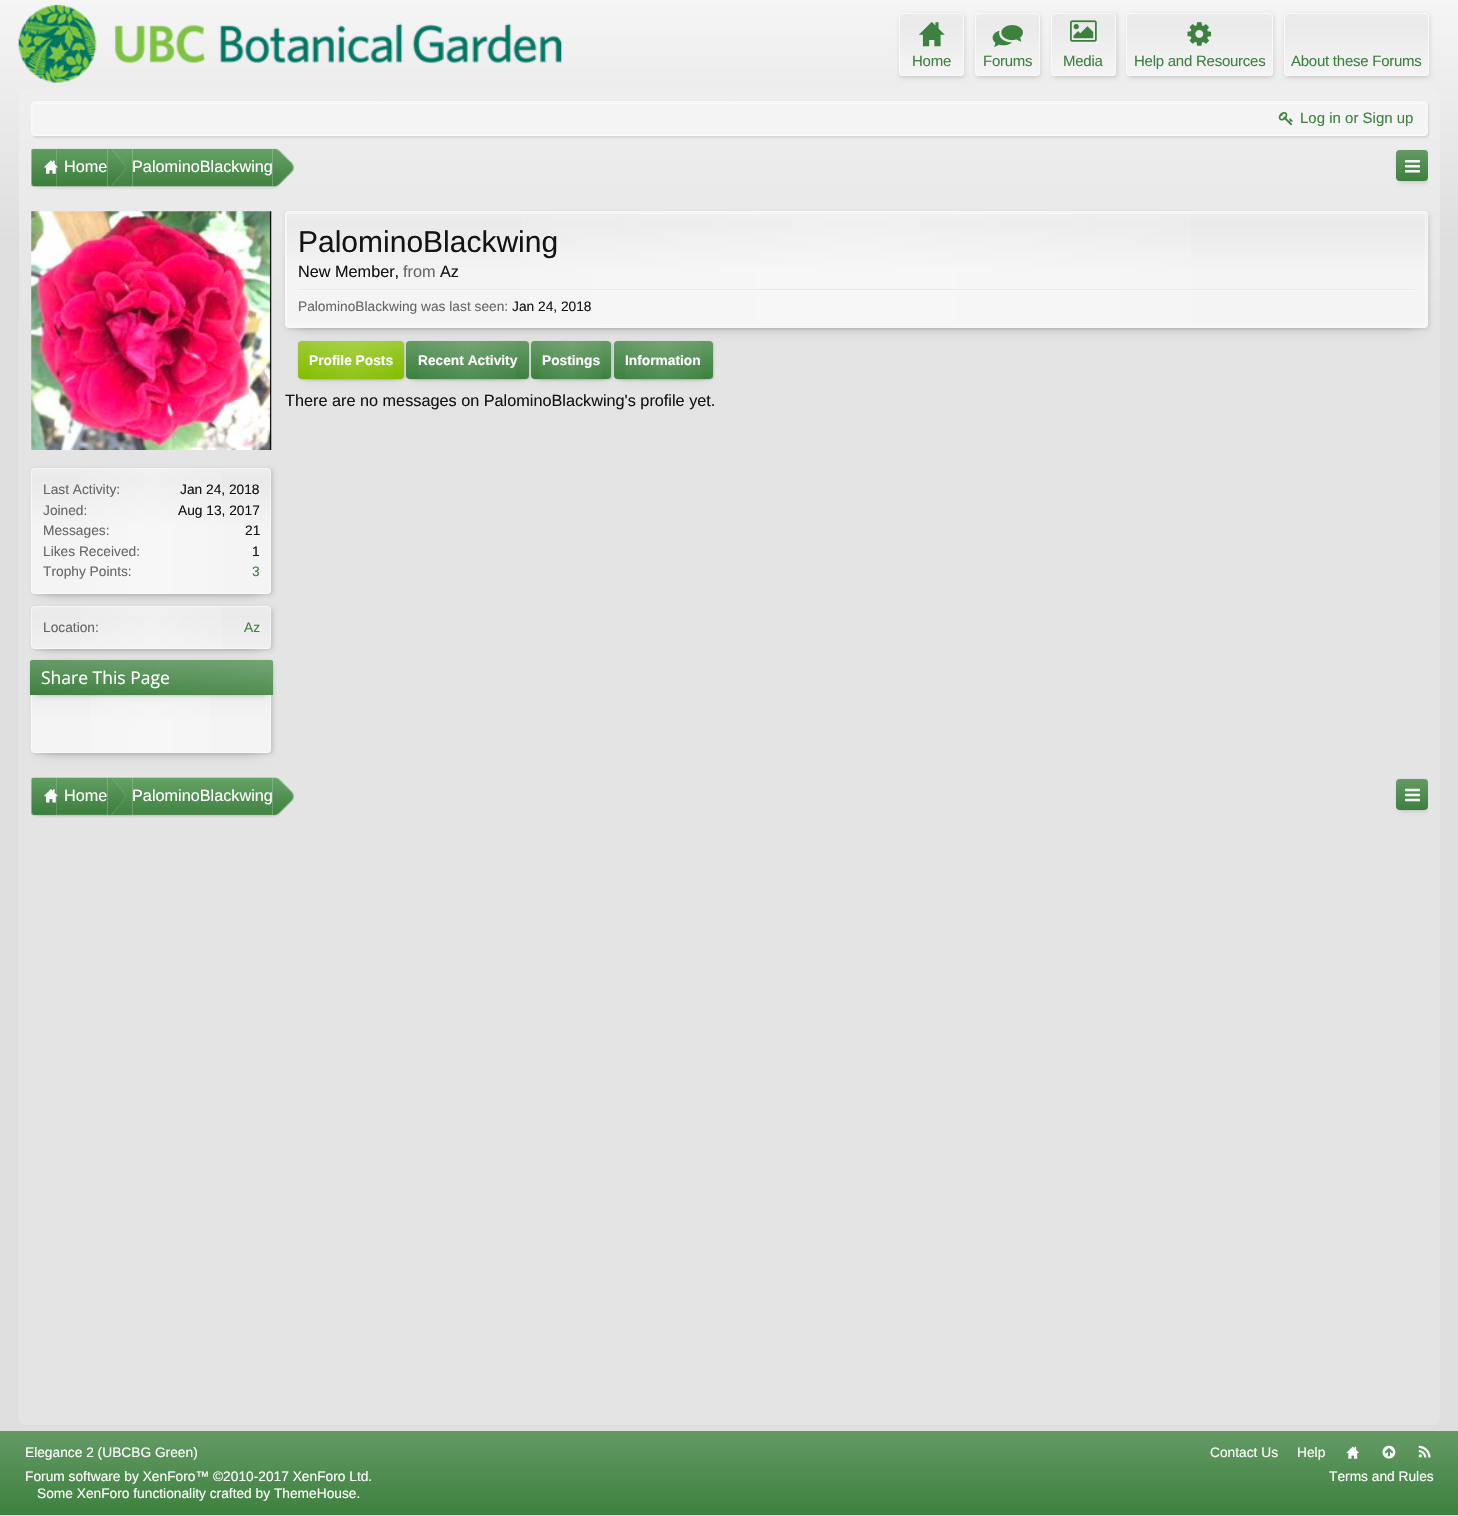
void draw(SkCanvas* canvas) {
	SkPaint paint;
	paint.setAntiAlias(true);
	auto spacedText = [&](const char* s, float x, float y, const SkFont& font, const SkPaint& ink, float letter, float word) {
		std::vector<SkGlyphID> glyphs(font.countText(s, strlen(s), SkTextEncoding::kUTF8));
		std::vector<float> xs(glyphs.size());
		font.textToGlyphs(s, strlen(s), SkTextEncoding::kUTF8, glyphs);
		font.getXPos(glyphs, xs, x);
		float extra = 0;
		for (size_t i = 0; i < glyphs.size(); i++) {
			xs[i] += extra;
			extra += letter + word * (glyphs[i] == font.unicharToGlyph(' '));
		}
		canvas->drawTextBlob(SkTextBlob::MakeFromPosHGlyphs(glyphs, xs, y, font), 0, 0, ink);
	};
	auto svgPath = [&](const char* data, bool evenOdd = false) {
		SkPath result = *SkParsePath::FromSVGString(data);
		if (evenOdd) result.setFillType(SkPathFillType::kEvenOdd);
		return result;
	};
	canvas->clear(0xffffffff);
	{
		const SkColor colors[] = {0xfff5f5f5, 0xffdedede};
		const float stops[] = {0, 0.16};
		const SkPoint ends[] = {{729, 0}, {729, 1516}};
		paint.setShader(SkGradientShader::MakeLinear(ends, colors, stops, 2, SkTileMode::kClamp));
		paint.setAlpha(255);
	}
	canvas->drawRect(SkRect::MakeXYWH(0, 0, 1458, 1516), paint);
	canvas->drawImageRect(SkImages::DeferredFromEncodedData(SkData::MakeFromFileName("img1.png")), SkRect::MakeXYWH(18, 4, 544, 79), SkSamplingOptions());
	paint.setShader(nullptr);
	paint.setColor(0x1a000000);
	paint.setMaskFilter(SkMaskFilter::MakeBlur(kNormal_SkBlurStyle, 2));
	canvas->drawRect(SkRect::MakeXYWH(903, 20, 57, 56), paint);
	paint.setMaskFilter(nullptr);
	paint.setMaskFilter(SkMaskFilter::MakeBlur(kNormal_SkBlurStyle, 2));
	canvas->drawRoundRect(SkRect::MakeXYWH(900, 14, 65, 64), 4, 4, paint);
	paint.setMaskFilter(nullptr);
	{
		const SkColor colors[] = {0xffececec, 0xffeaeaea, 0xfff4f4f4};
		const float stops[] = {0, 0.2, 0.98};
		const SkPoint ends[] = {{931, 12}, {931, 76}};
		paint.setShader(SkGradientShader::MakeLinear(ends, colors, stops, 3, SkTileMode::kClamp));
		paint.setAlpha(255);
	}
	canvas->drawRoundRect(SkRect::MakeXYWH(899, 13, 65, 63), 4, 4, paint);
	paint.setStroke(true);
	paint.setStrokeWidth(1);
	paint.setShader(nullptr);
	paint.setColor(0x4dffffff);
	canvas->drawRoundRect(SkRect::MakeXYWH(899.5, 13.5, 64, 62), 3.5, 3.5, paint);
	paint.setColor(0xfff9f9f9);
	canvas->drawRoundRect(SkRect::MakeXYWH(899.5, 13.5, 64, 62), 3.5, 3.5, paint);
	canvas->drawImageRect(SkImages::DeferredFromEncodedData(SkData::MakeFromFileName("img2.png")), SkRect::MakeXYWH(918, 22, 27, 25), SkSamplingOptions());
	SkFont f1(fontMgr->matchFamilyStyle("Liberation Sans", SkFontStyle::Normal()), 15);
	f1.setSubpixel(true);
	paint.setStroke(false);
	paint.setColor(0xff3d813e);
	spacedText("Home", 912, 66, f1, paint, -0.25, 0);
	paint.setColor(0x1a000000);
	paint.setMaskFilter(SkMaskFilter::MakeBlur(kNormal_SkBlurStyle, 2));
	canvas->drawRect(SkRect::MakeXYWH(979, 20, 57, 56), paint);
	paint.setMaskFilter(nullptr);
	paint.setMaskFilter(SkMaskFilter::MakeBlur(kNormal_SkBlurStyle, 2));
	canvas->drawRoundRect(SkRect::MakeXYWH(976, 14, 65, 64), 4, 4, paint);
	paint.setMaskFilter(nullptr);
	{
		const SkColor colors[] = {0xffececec, 0xffeaeaea, 0xfff4f4f4};
		const float stops[] = {0, 0.2, 0.98};
		const SkPoint ends[] = {{1008, 12}, {1008, 76}};
		paint.setShader(SkGradientShader::MakeLinear(ends, colors, stops, 3, SkTileMode::kClamp));
		paint.setAlpha(255);
	}
	canvas->drawRoundRect(SkRect::MakeXYWH(975, 13, 65, 63), 4, 4, paint);
	paint.setStroke(true);
	paint.setShader(nullptr);
	paint.setColor(0x4dffffff);
	canvas->drawRoundRect(SkRect::MakeXYWH(975.5, 13.5, 64, 62), 3.5, 3.5, paint);
	paint.setColor(0xfff9f9f9);
	canvas->drawRoundRect(SkRect::MakeXYWH(975.5, 13.5, 64, 62), 3.5, 3.5, paint);
	canvas->drawImageRect(SkImages::DeferredFromEncodedData(SkData::MakeFromFileName("img3.png")), SkRect::MakeXYWH(992, 25, 31, 22), SkSamplingOptions());
	paint.setStroke(false);
	paint.setColor(0xff3d813e);
	spacedText("Forums", 983, 66, f1, paint, -0.25, 0);
	paint.setColor(0x1a000000);
	paint.setMaskFilter(SkMaskFilter::MakeBlur(kNormal_SkBlurStyle, 2));
	canvas->drawRect(SkRect::MakeXYWH(1055, 20, 58, 56), paint);
	paint.setMaskFilter(nullptr);
	paint.setMaskFilter(SkMaskFilter::MakeBlur(kNormal_SkBlurStyle, 2));
	canvas->drawRoundRect(SkRect::MakeXYWH(1053, 14, 65, 64), 4, 4, paint);
	paint.setMaskFilter(nullptr);
	{
		const SkColor colors[] = {0xffececec, 0xffeaeaea, 0xfff4f4f4};
		const float stops[] = {0, 0.2, 0.98};
		const SkPoint ends[] = {{1084, 12}, {1084, 76}};
		paint.setShader(SkGradientShader::MakeLinear(ends, colors, stops, 3, SkTileMode::kClamp));
		paint.setAlpha(255);
	}
	canvas->drawRoundRect(SkRect::MakeXYWH(1051, 13, 65, 63), 4, 4, paint);
	paint.setStroke(true);
	paint.setShader(nullptr);
	paint.setColor(0x4dffffff);
	canvas->drawRoundRect(SkRect::MakeXYWH(1051.5, 13.5, 64, 62), 3.5, 3.5, paint);
	paint.setColor(0xfff9f9f9);
	canvas->drawRoundRect(SkRect::MakeXYWH(1051.5, 13.5, 64, 62), 3.5, 3.5, paint);
	canvas->drawImageRect(SkImages::DeferredFromEncodedData(SkData::MakeFromFileName("img4.png")), SkRect::MakeXYWH(1070, 20, 27, 22), SkSamplingOptions());
	paint.setStroke(false);
	paint.setColor(0xff3d813e);
	spacedText("Media", 1063, 66, f1, paint, -0.25, 0);
	paint.setColor(0x1a000000);
	paint.setMaskFilter(SkMaskFilter::MakeBlur(kNormal_SkBlurStyle, 2));
	canvas->drawRect(SkRect::MakeXYWH(1130, 20, 139, 56), paint);
	paint.setMaskFilter(nullptr);
	paint.setMaskFilter(SkMaskFilter::MakeBlur(kNormal_SkBlurStyle, 2));
	canvas->drawRoundRect(SkRect::MakeXYWH(1128, 14, 146, 64), 4, 4, paint);
	paint.setMaskFilter(nullptr);
	{
		const SkColor colors[] = {0xffececec, 0xffeaeaea, 0xfff4f4f4};
		const float stops[] = {0, 0.2, 0.98};
		const SkPoint ends[] = {{1199, 12}, {1199, 76}};
		paint.setShader(SkGradientShader::MakeLinear(ends, colors, stops, 3, SkTileMode::kClamp));
		paint.setAlpha(255);
	}
	canvas->drawRoundRect(SkRect::MakeXYWH(1126, 13, 147, 63), 4, 4, paint);
	paint.setStroke(true);
	paint.setShader(nullptr);
	paint.setColor(0x4dffffff);
	canvas->drawRoundRect(SkRect::MakeXYWH(1126.5, 13.5, 146, 62), 3.5, 3.5, paint);
	paint.setColor(0xfff9f9f9);
	canvas->drawRoundRect(SkRect::MakeXYWH(1126.5, 13.5, 146, 62), 3.5, 3.5, paint);
	canvas->drawImageRect(SkImages::DeferredFromEncodedData(SkData::MakeFromFileName("img5.png")), SkRect::MakeXYWH(1187, 22, 25, 24), SkSamplingOptions());
	paint.setStroke(false);
	paint.setColor(0xff3d813e);
	spacedText("Help and Resources", 1134, 66, f1, paint, -0.25, 0);
	paint.setColor(0x1a000000);
	paint.setMaskFilter(SkMaskFilter::MakeBlur(kNormal_SkBlurStyle, 2));
	canvas->drawRect(SkRect::MakeXYWH(1288, 20, 137, 56), paint);
	paint.setMaskFilter(nullptr);
	paint.setMaskFilter(SkMaskFilter::MakeBlur(kNormal_SkBlurStyle, 2));
	canvas->drawRoundRect(SkRect::MakeXYWH(1285, 14, 145, 64), 4, 4, paint);
	paint.setMaskFilter(nullptr);
	{
		const SkColor colors[] = {0xffececec, 0xffeaeaea, 0xfff4f4f4};
		const float stops[] = {0, 0.2, 0.98};
		const SkPoint ends[] = {{1356, 12}, {1356, 76}};
		paint.setShader(SkGradientShader::MakeLinear(ends, colors, stops, 3, SkTileMode::kClamp));
		paint.setAlpha(255);
	}
	canvas->drawRoundRect(SkRect::MakeXYWH(1284, 13, 145, 63), 4, 4, paint);
	paint.setStroke(true);
	paint.setShader(nullptr);
	paint.setColor(0x4dffffff);
	canvas->drawRoundRect(SkRect::MakeXYWH(1284.5, 13.5, 144, 62), 3.5, 3.5, paint);
	paint.setColor(0xfff9f9f9);
	canvas->drawRoundRect(SkRect::MakeXYWH(1284.5, 13.5, 144, 62), 3.5, 3.5, paint);
	paint.setStroke(false);
	paint.setColor(0xff3d813e);
	spacedText("About these Forums", 1291, 66, f1, paint, -0.25, 0);
	paint.setColor(0xffe4e4e4);
	canvas->drawRoundRect(SkRect::MakeXYWH(19, 89, 1421, 1336), 6, 6, paint);
	{
		const SkColor colors[] = {0x66ffffff, 0x00ffffff};
		const float stops[] = {0, 0.19};
		const SkPoint ends[] = {{729, 89}, {729, 1425}};
		paint.setShader(SkGradientShader::MakeLinear(ends, colors, stops, 2, SkTileMode::kClamp));
		paint.setAlpha(255);
	}
	canvas->drawRoundRect(SkRect::MakeXYWH(19, 89, 1421, 1336), 6, 6, paint);
	paint.setShader(nullptr);
	paint.setColor(0x1a000000);
	paint.setMaskFilter(SkMaskFilter::MakeBlur(kNormal_SkBlurStyle, 1));
	canvas->drawRoundRect(SkRect::MakeXYWH(33, 103, 1396, 35), 4, 4, paint);
	paint.setMaskFilter(nullptr);
	paint.setColor(0xfff4f4f4);
	canvas->drawRoundRect(SkRect::MakeXYWH(31, 101, 1397, 35), 4, 4, paint);
	paint.setStroke(true);
	paint.setColor(0xfffafafa);
	canvas->drawRoundRect(SkRect::MakeXYWH(33.5, 103.5, 1392, 31), 2, 2, paint);
	paint.setColor(0xfff9f9f9);
	canvas->drawRoundRect(SkRect::MakeXYWH(31.5, 101.5, 1396, 34), 3.5, 3.5, paint);
	canvas->drawImageRect(SkImages::DeferredFromEncodedData(SkData::MakeFromFileName("img6.png")), SkRect::MakeXYWH(1278, 112, 15, 14), SkSamplingOptions());
	paint.setStroke(false);
	paint.setColor(0xff3d813e);
	canvas->drawString("Log in or Sign up", 1300, 123, f1, paint);
	canvas->drawImageRect(SkImages::DeferredFromEncodedData(SkData::MakeFromFileName("img7.png")), SkRect::MakeXYWH(56, 148, 52, 42), SkSamplingOptions());
	canvas->drawImageRect(SkImages::DeferredFromEncodedData(SkData::MakeFromFileName("img8.png")), SkRect::MakeXYWH(31, 148, 26, 41), SkSamplingOptions());
	canvas->drawImageRect(SkImages::DeferredFromEncodedData(SkData::MakeFromFileName("img9.png")), SkRect::MakeXYWH(43, 160, 15, 14), SkSamplingOptions());
	SkFont f2(fontMgr->matchFamilyStyle("Liberation Sans", SkFontStyle::Normal()), 16.25);
	f2.setSubpixel(true);
	paint.setColor(0xffffffff);
	canvas->drawString("Home", 64, 172, f2, paint);
	canvas->drawImageRect(SkImages::DeferredFromEncodedData(SkData::MakeFromFileName("img10.png")), SkRect::MakeXYWH(107, 148, 19, 39), SkSamplingOptions());
	canvas->drawImageRect(SkImages::DeferredFromEncodedData(SkData::MakeFromFileName("img11.png")), SkRect::MakeXYWH(132, 148, 141, 42), SkSamplingOptions());
	canvas->drawImageRect(SkImages::DeferredFromEncodedData(SkData::MakeFromFileName("img12.png")), SkRect::MakeXYWH(107, 148, 26, 41), SkSamplingOptions());
	canvas->drawString("PalominoBlackwing", 132, 172, f2, paint);
	canvas->drawImageRect(SkImages::DeferredFromEncodedData(SkData::MakeFromFileName("img13.png")), SkRect::MakeXYWH(272, 148, 22, 41), SkSamplingOptions());
	paint.setColor(0x1a000000);
	paint.setMaskFilter(SkMaskFilter::MakeBlur(kNormal_SkBlurStyle, 2));
	canvas->drawRect(SkRect::MakeXYWH(1400, 158, 24, 23), paint);
	paint.setMaskFilter(nullptr);
	canvas->save();
	canvas->clipRect(SkRect::MakeXYWH(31, 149, 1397, 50));
	paint.setMaskFilter(SkMaskFilter::MakeBlur(kNormal_SkBlurStyle, 2));
	canvas->drawRoundRect(SkRect::MakeXYWH(1398, 151, 31, 32), 4, 4, paint);
	paint.setMaskFilter(nullptr);
	canvas->restore();
	paint.setColor(0xff3d813e);
	canvas->drawRoundRect(SkRect::MakeXYWH(1396, 150, 32, 31), 4, 4, paint);
	{
		const SkColor colors[] = {0x33ffffff, 0x00ffffff};
		const float stops[] = {0, 1};
		const SkPoint ends[] = {{1412, 150}, {1412, 181}};
		paint.setShader(SkGradientShader::MakeLinear(ends, colors, stops, 2, SkTileMode::kClamp));
		paint.setAlpha(255);
	}
	canvas->drawRoundRect(SkRect::MakeXYWH(1396, 150, 32, 31), 4, 4, paint);
	canvas->drawImageRect(SkImages::DeferredFromEncodedData(SkData::MakeFromFileName("img14.png")), SkRect::MakeXYWH(1405, 160, 15, 13), SkSamplingOptions());
	paint.setShader(nullptr);
	paint.setColor(0x33000000);
	paint.setMaskFilter(SkMaskFilter::MakeBlur(kNormal_SkBlurStyle, 6));
	canvas->drawRect(SkRect::MakeXYWH(298, 236, 1117, 92), paint);
	paint.setMaskFilter(nullptr);
	paint.setColor(0x26000000);
	paint.setMaskFilter(SkMaskFilter::MakeBlur(kNormal_SkBlurStyle, 2));
	canvas->drawRoundRect(SkRect::MakeXYWH(286, 213, 1143, 116), 4, 4, paint);
	paint.setMaskFilter(nullptr);
	paint.setColor(0xfff4f4f4);
	canvas->drawRoundRect(SkRect::MakeXYWH(285, 211, 1143, 117), 4, 4, paint);
	canvas->save();
	canvas->clipPath(svgPath("M289 211H1424C1426 211 1428 213 1428 215V324C1428 326 1426 328 1424 328H289C287 328 285 326 285 324V215C285 213 287 211 289 211Z"), true);
	{
		const SkColor colors[] = {0xffececec, 0xffeaeaea, 0xfff4f4f4};
		const float stops[] = {0, 0.11, 0.55};
		const SkPoint ends[] = {{856, 212}, {856, 326}};
		paint.setShader(SkGradientShader::MakeLinear(ends, colors, stops, 3, SkTileMode::kClamp));
		paint.setAlpha(255);
	}
	canvas->drawRect(SkRect::MakeXYWH(285, 213, 1143, 113), paint);
	canvas->restore();
	{
		const SkColor colors[] = {0x00ffffff, 0x4dffffff, 0x00ffffff};
		const float stops[] = {0, 0.5, 1};
		const SkPoint ends[] = {{286, 269}, {1426, 269}};
		paint.setShader(SkGradientShader::MakeLinear(ends, colors, stops, 3, SkTileMode::kClamp));
		paint.setAlpha(255);
	}
	canvas->drawRect(SkRect::MakeXYWH(521, 213, 670, 113), paint);
	paint.setStroke(true);
	paint.setShader(nullptr);
	paint.setColor(0x80ffffff);
	canvas->drawRoundRect(SkRect::MakeXYWH(286.5, 213.5, 1139, 112), 2, 2, paint);
	paint.setColor(0xfff9f9f9);
	canvas->drawRoundRect(SkRect::MakeXYWH(285.5, 211.5, 1142, 116), 3.5, 3.5, paint);
	SkFont f3(fontMgr->matchFamilyStyle("Liberation Sans", SkFontStyle::Normal()), 30);
	f3.setSubpixel(true);
	paint.setStroke(false);
	paint.setColor(0xff141414);
	canvas->drawString("PalominoBlackwing", 298, 252, f3, paint);
	canvas->drawString("New Member,", 298, 277, f2, paint);
	paint.setColor(0xff666666);
	canvas->drawString("from", 403, 277, f2, paint);
	paint.setColor(0xff141414);
	canvas->drawString("Az", 440, 277, f2, paint);
	paint.setColor(0xffe8e8e8);
	canvas->drawRect(SkRect::MakeXYWH(298, 289, 1117, 1), paint);
	paint.setColor(0xfffafafa);
	canvas->drawRect(SkRect::MakeXYWH(298, 290, 1117, 1), paint);
	SkFont f4(fontMgr->matchFamilyStyle("Liberation Sans", SkFontStyle::Normal()), 13.75);
	f4.setSubpixel(true);
	paint.setColor(0xff666666);
	canvas->drawString("PalominoBlackwing was last seen:", 298, 311, f4, paint);
	paint.setColor(0xff141414);
	canvas->drawString("Jan 24, 2018", 512, 311, f4, paint);
	paint.setColor(0x33000000);
	paint.setMaskFilter(SkMaskFilter::MakeBlur(kNormal_SkBlurStyle, 3));
	canvas->drawRect(SkRect::MakeXYWH(304, 354, 94, 25), paint);
	paint.setMaskFilter(nullptr);
	paint.setColor(0x1a000000);
	paint.setMaskFilter(SkMaskFilter::MakeBlur(kNormal_SkBlurStyle, 1));
	canvas->drawRoundRect(SkRect::MakeXYWH(298, 341, 106, 38), 4, 4, paint);
	paint.setMaskFilter(nullptr);
	paint.setMaskFilter(SkMaskFilter::MakeBlur(kNormal_SkBlurStyle, 1));
	canvas->drawRoundRect(SkRect::MakeXYWH(299, 343, 106, 37), 4, 4, paint);
	paint.setMaskFilter(nullptr);
	paint.setColor(0xff84be00);
	canvas->drawRoundRect(SkRect::MakeXYWH(298, 341, 106, 38), 4, 4, paint);
	{
		const SkColor colors[] = {0x00ffffff, 0x1affffff, 0x00ffffff};
		const float stops[] = {0, 0.5, 1};
		const SkPoint ends[] = {{298, 360}, {404, 360}};
		paint.setShader(SkGradientShader::MakeLinear(ends, colors, stops, 3, SkTileMode::kClamp));
		paint.setAlpha(255);
	}
	canvas->drawRect(SkRect::MakeXYWH(309, 341, 84, 38), paint);
	{
		const SkColor colors[] = {0x33ffffff, 0x00ffffff};
		const float stops[] = {0, 1};
		const SkPoint ends[] = {{351, 341}, {351, 379}};
		paint.setShader(SkGradientShader::MakeLinear(ends, colors, stops, 2, SkTileMode::kClamp));
		paint.setAlpha(255);
	}
	canvas->drawRoundRect(SkRect::MakeXYWH(298, 341, 106, 38), 4, 4, paint);
	SkFont f5(fontMgr->matchFamilyStyle("Liberation Sans", SkFontStyle::Bold()), 13.75);
	f5.setSubpixel(true);
	paint.setShader(nullptr);
	paint.setColor(0xffffffff);
	canvas->drawString("Profile Posts", 309, 365, f5, paint);
	paint.setColor(0x33000000);
	paint.setMaskFilter(SkMaskFilter::MakeBlur(kNormal_SkBlurStyle, 3));
	canvas->drawRect(SkRect::MakeXYWH(413, 354, 110, 25), paint);
	paint.setMaskFilter(nullptr);
	paint.setColor(0x1a000000);
	paint.setMaskFilter(SkMaskFilter::MakeBlur(kNormal_SkBlurStyle, 1));
	canvas->drawRoundRect(SkRect::MakeXYWH(406, 341, 123, 38), 4, 4, paint);
	paint.setMaskFilter(nullptr);
	paint.setMaskFilter(SkMaskFilter::MakeBlur(kNormal_SkBlurStyle, 1));
	canvas->drawRoundRect(SkRect::MakeXYWH(408, 343, 122, 37), 4, 4, paint);
	paint.setMaskFilter(nullptr);
	paint.setColor(0xff3d813e);
	canvas->drawRoundRect(SkRect::MakeXYWH(406, 341, 123, 38), 4, 4, paint);
	{
		const SkColor colors[] = {0x00ffffff, 0x1affffff, 0x00ffffff};
		const float stops[] = {0, 0.5, 1};
		const SkPoint ends[] = {{406, 360}, {529, 360}};
		paint.setShader(SkGradientShader::MakeLinear(ends, colors, stops, 3, SkTileMode::kClamp));
		paint.setAlpha(255);
	}
	canvas->drawRect(SkRect::MakeXYWH(419, 341, 97, 38), paint);
	{
		const SkColor colors[] = {0x33ffffff, 0x00ffffff};
		const float stops[] = {0, 1};
		const SkPoint ends[] = {{468, 341}, {468, 379}};
		paint.setShader(SkGradientShader::MakeLinear(ends, colors, stops, 2, SkTileMode::kClamp));
		paint.setAlpha(255);
	}
	canvas->drawRoundRect(SkRect::MakeXYWH(406, 341, 123, 38), 4, 4, paint);
	paint.setShader(nullptr);
	paint.setColor(0xffffffff);
	canvas->drawString("Recent Activity", 418, 365, f5, paint);
	paint.setColor(0x33000000);
	paint.setMaskFilter(SkMaskFilter::MakeBlur(kNormal_SkBlurStyle, 3));
	canvas->drawRect(SkRect::MakeXYWH(538, 354, 67, 25), paint);
	paint.setMaskFilter(nullptr);
	paint.setColor(0x1a000000);
	paint.setMaskFilter(SkMaskFilter::MakeBlur(kNormal_SkBlurStyle, 1));
	canvas->drawRoundRect(SkRect::MakeXYWH(531, 341, 80, 38), 4, 4, paint);
	paint.setMaskFilter(nullptr);
	paint.setMaskFilter(SkMaskFilter::MakeBlur(kNormal_SkBlurStyle, 1));
	canvas->drawRoundRect(SkRect::MakeXYWH(533, 343, 80, 37), 4, 4, paint);
	paint.setMaskFilter(nullptr);
	paint.setColor(0xff3d813e);
	canvas->drawRoundRect(SkRect::MakeXYWH(531, 341, 80, 38), 4, 4, paint);
	{
		const SkColor colors[] = {0x00ffffff, 0x1affffff, 0x00ffffff};
		const float stops[] = {0, 0.5, 1};
		const SkPoint ends[] = {{531, 360}, {611, 360}};
		paint.setShader(SkGradientShader::MakeLinear(ends, colors, stops, 3, SkTileMode::kClamp));
		paint.setAlpha(255);
	}
	canvas->drawRect(SkRect::MakeXYWH(540, 341, 62, 38), paint);
	{
		const SkColor colors[] = {0x33ffffff, 0x00ffffff};
		const float stops[] = {0, 1};
		const SkPoint ends[] = {{571, 341}, {571, 379}};
		paint.setShader(SkGradientShader::MakeLinear(ends, colors, stops, 2, SkTileMode::kClamp));
		paint.setAlpha(255);
	}
	canvas->drawRoundRect(SkRect::MakeXYWH(531, 341, 80, 38), 4, 4, paint);
	paint.setShader(nullptr);
	paint.setColor(0xffffffff);
	canvas->drawString("Postings", 542, 365, f5, paint);
	paint.setColor(0x33000000);
	paint.setMaskFilter(SkMaskFilter::MakeBlur(kNormal_SkBlurStyle, 3));
	canvas->drawRect(SkRect::MakeXYWH(620, 354, 86, 25), paint);
	paint.setMaskFilter(nullptr);
	paint.setColor(0x1a000000);
	paint.setMaskFilter(SkMaskFilter::MakeBlur(kNormal_SkBlurStyle, 1));
	canvas->drawRoundRect(SkRect::MakeXYWH(614, 341, 99, 38), 4, 4, paint);
	paint.setMaskFilter(nullptr);
	paint.setMaskFilter(SkMaskFilter::MakeBlur(kNormal_SkBlurStyle, 1));
	canvas->drawRoundRect(SkRect::MakeXYWH(615, 343, 99, 37), 4, 4, paint);
	paint.setMaskFilter(nullptr);
	paint.setColor(0xff3d813e);
	canvas->drawRoundRect(SkRect::MakeXYWH(614, 341, 99, 38), 4, 4, paint);
	{
		const SkColor colors[] = {0x00ffffff, 0x1affffff, 0x00ffffff};
		const float stops[] = {0, 0.5, 1};
		const SkPoint ends[] = {{614, 360}, {713, 360}};
		paint.setShader(SkGradientShader::MakeLinear(ends, colors, stops, 3, SkTileMode::kClamp));
		paint.setAlpha(255);
	}
	canvas->drawRect(SkRect::MakeXYWH(625, 341, 77, 38), paint);
	{
		const SkColor colors[] = {0x33ffffff, 0x00ffffff};
		const float stops[] = {0, 1};
		const SkPoint ends[] = {{663, 341}, {663, 379}};
		paint.setShader(SkGradientShader::MakeLinear(ends, colors, stops, 2, SkTileMode::kClamp));
		paint.setAlpha(255);
	}
	canvas->drawRoundRect(SkRect::MakeXYWH(614, 341, 99, 38), 4, 4, paint);
	paint.setShader(nullptr);
	paint.setColor(0xffffffff);
	canvas->drawString("Information", 625, 365, f5, paint);
	paint.setColor(0xff141414);
	canvas->drawString("There are no messages on PalominoBlackwing's profile yet.", 285, 406, f2, paint);
	canvas->drawImageRect(SkImages::DeferredFromEncodedData(SkData::MakeFromFileName("img15.png")), SkRect::MakeXYWH(31, 211, 241, 239), SkSamplingOptions());
	paint.setColor(0x33000000);
	paint.setMaskFilter(SkMaskFilter::MakeBlur(kNormal_SkBlurStyle, 6));
	canvas->drawRect(SkRect::MakeXYWH(44, 493, 215, 101), paint);
	paint.setMaskFilter(nullptr);
	paint.setColor(0x26000000);
	paint.setMaskFilter(SkMaskFilter::MakeBlur(kNormal_SkBlurStyle, 2));
	canvas->drawRoundRect(SkRect::MakeXYWH(33, 469, 240, 126), 4, 4, paint);
	paint.setMaskFilter(nullptr);
	{
		const SkColor colors[] = {0xffececec, 0xffeaeaea, 0xfff4f4f4};
		const float stops[] = {0, 0.1, 0.5};
		const SkPoint ends[] = {{151, 468}, {151, 594}};
		paint.setShader(SkGradientShader::MakeLinear(ends, colors, stops, 3, SkTileMode::kClamp));
		paint.setAlpha(255);
	}
	canvas->drawRoundRect(SkRect::MakeXYWH(31, 468, 240, 126), 4, 4, paint);
	{
		const SkColor colors[] = {0x00ffffff, 0x4dffffff, 0x00ffffff};
		const float stops[] = {0, 0.5, 1};
		const SkPoint ends[] = {{31, 531}, {271, 531}};
		paint.setShader(SkGradientShader::MakeLinear(ends, colors, stops, 3, SkTileMode::kClamp));
		paint.setAlpha(255);
	}
	canvas->drawRect(SkRect::MakeXYWH(80, 468, 142, 126), paint);
	paint.setStroke(true);
	paint.setShader(nullptr);
	paint.setColor(0x80ffffff);
	canvas->drawRoundRect(SkRect::MakeXYWH(31.5, 468.5, 239, 125), 3.5, 3.5, paint);
	paint.setStroke(false);
	paint.setColor(0xff666666);
	canvas->drawString("Last Activity:", 43, 494, f4, paint);
	paint.setColor(0xff141414);
	canvas->drawString("Jan 24, 2018", 180, 494, f4, paint);
	paint.setColor(0xff666666);
	canvas->drawString("Joined:", 43, 515, f4, paint);
	paint.setColor(0xff141414);
	canvas->drawString("Aug 13, 2017", 178, 515, f4, paint);
	paint.setColor(0xff666666);
	canvas->drawString("Messages:", 43, 535, f4, paint);
	paint.setColor(0xff141414);
	canvas->drawString("21", 245, 535, f4, paint);
	paint.setColor(0xff666666);
	canvas->drawString("Likes Received:", 43, 556, f4, paint);
	paint.setColor(0xff141414);
	canvas->drawString("1", 252, 556, f4, paint);
	paint.setColor(0xff666666);
	canvas->drawString("Trophy Points:", 43, 576, f4, paint);
	paint.setColor(0xff3d813e);
	canvas->drawString("3", 252, 576, f4, paint);
	paint.setColor(0x33000000);
	paint.setMaskFilter(SkMaskFilter::MakeBlur(kNormal_SkBlurStyle, 6));
	canvas->drawRect(SkRect::MakeXYWH(44, 686, 215, 67), paint);
	paint.setMaskFilter(nullptr);
	paint.setColor(0x26000000);
	paint.setMaskFilter(SkMaskFilter::MakeBlur(kNormal_SkBlurStyle, 2));
	canvas->drawRoundRect(SkRect::MakeXYWH(33, 663, 240, 91), 4, 4, paint);
	paint.setMaskFilter(nullptr);
	{
		const SkColor colors[] = {0xffececec, 0xffeaeaea, 0xfff4f4f4};
		const float stops[] = {0, 0.14, 0.68};
		const SkPoint ends[] = {{151, 661}, {151, 753}};
		paint.setShader(SkGradientShader::MakeLinear(ends, colors, stops, 3, SkTileMode::kClamp));
		paint.setAlpha(255);
	}
	canvas->drawRoundRect(SkRect::MakeXYWH(31, 661, 240, 92), 4, 4, paint);
	{
		const SkColor colors[] = {0x00ffffff, 0x4dffffff, 0x00ffffff};
		const float stops[] = {0, 0.5, 1};
		const SkPoint ends[] = {{31, 707}, {271, 707}};
		paint.setShader(SkGradientShader::MakeLinear(ends, colors, stops, 3, SkTileMode::kClamp));
		paint.setAlpha(255);
	}
	canvas->drawRect(SkRect::MakeXYWH(91, 695, 120, 58), paint);
	paint.setStroke(true);
	paint.setShader(nullptr);
	paint.setColor(0x80ffffff);
	canvas->drawRoundRect(SkRect::MakeXYWH(31.5, 661.5, 239, 91), 3.5, 3.5, paint);
	paint.setStroke(false);
	paint.setColor(0x33000000);
	paint.setMaskFilter(SkMaskFilter::MakeBlur(kNormal_SkBlurStyle, 3));
	canvas->drawRect(SkRect::MakeXYWH(36, 673, 230, 22), paint);
	paint.setMaskFilter(nullptr);
	paint.setColor(0x1a000000);
	paint.setMaskFilter(SkMaskFilter::MakeBlur(kNormal_SkBlurStyle, 1));
	canvas->drawRoundRect(SkRect::MakeXYWH(30, 660, 243, 35), 2.5, 2.5, paint);
	paint.setMaskFilter(nullptr);
	paint.setColor(0xff3d813e);
	canvas->drawPath(svgPath("M32.5 660H270.5C272 660 273 661 273 662.5V695H30V662.5C30 661 31 660 32.5 660Z"), paint);
	{
		const SkColor colors[] = {0x00ffffff, 0x1affffff};
		const float stops[] = {0, 1};
		const SkPoint ends[] = {{30, 678}, {273, 678}};
		paint.setShader(SkGradientShader::MakeLinear(ends, colors, stops, 2, SkTileMode::kClamp));
		paint.setAlpha(255);
	}
	canvas->drawPath(svgPath("M32.5 660H270.5C272 660 273 661 273 662.5V695H30V662.5C30 661 31 660 32.5 660Z"), paint);
	{
		const SkColor colors[] = {0x33ffffff, 0x00ffffff};
		const float stops[] = {0, 1};
		const SkPoint ends[] = {{151, 660}, {151, 695}};
		paint.setShader(SkGradientShader::MakeLinear(ends, colors, stops, 2, SkTileMode::kClamp));
		paint.setAlpha(255);
	}
	canvas->drawPath(svgPath("M32.5 660H270.5C272 660 273 661 273 662.5V695H30V662.5C30 661 31 660 32.5 660Z"), paint);
	paint.setShader(nullptr);
	paint.setColor(0x33000000);
	paint.setMaskFilter(SkMaskFilter::MakeBlur(kNormal_SkBlurStyle, 6));
	canvas->drawRect(SkRect::MakeXYWH(44, 631, 215, 18), paint);
	paint.setMaskFilter(nullptr);
	paint.setColor(0x26000000);
	paint.setMaskFilter(SkMaskFilter::MakeBlur(kNormal_SkBlurStyle, 2));
	canvas->drawRoundRect(SkRect::MakeXYWH(33, 608, 240, 42), 4, 4, paint);
	paint.setMaskFilter(nullptr);
	{
		const SkColor colors[] = {0xffececec, 0xffeaeaea, 0xfff4f4f4};
		const float stops[] = {0, 0.2, 1};
		const SkPoint ends[] = {{151, 606}, {151, 669}};
		paint.setShader(SkGradientShader::MakeLinear(ends, colors, stops, 3, SkTileMode::kClamp));
		paint.setAlpha(255);
	}
	canvas->drawRoundRect(SkRect::MakeXYWH(31, 606, 240, 43), 4, 4, paint);
	{
		const SkColor colors[] = {0x00ffffff, 0x4dffffff, 0x00ffffff};
		const float stops[] = {0, 0.5, 1};
		const SkPoint ends[] = {{31, 628}, {271, 628}};
		paint.setShader(SkGradientShader::MakeLinear(ends, colors, stops, 3, SkTileMode::kClamp));
		paint.setAlpha(255);
	}
	canvas->drawRect(SkRect::MakeXYWH(80, 606, 142, 43), paint);
	paint.setStroke(true);
	paint.setShader(nullptr);
	paint.setColor(0x80ffffff);
	canvas->drawRoundRect(SkRect::MakeXYWH(31.5, 606.5, 239, 42), 3.5, 3.5, paint);
	paint.setStroke(false);
	paint.setColor(0xff666666);
	canvas->drawString("Location:", 43, 632, f4, paint);
	paint.setColor(0xff3d813e);
	canvas->drawString("Az", 244, 632, f4, paint);
	SkFont f6(fontMgr->matchFamilyStyle("Open Sans", SkFontStyle::Normal()), 17.5);
	f6.setSubpixel(true);
	paint.setColor(0xffffffff);
	canvas->drawString("Share This Page", 41, 684, f6, paint);
	canvas->drawImageRect(SkImages::DeferredFromEncodedData(SkData::MakeFromFileName("img16.png")), SkRect::MakeXYWH(56, 777, 52, 41), SkSamplingOptions());
	canvas->drawImageRect(SkImages::DeferredFromEncodedData(SkData::MakeFromFileName("img17.png")), SkRect::MakeXYWH(31, 777, 26, 41), SkSamplingOptions());
	canvas->drawImageRect(SkImages::DeferredFromEncodedData(SkData::MakeFromFileName("img18.png")), SkRect::MakeXYWH(43, 789, 15, 14), SkSamplingOptions());
	canvas->drawString("Home", 64, 801, f2, paint);
	canvas->drawImageRect(SkImages::DeferredFromEncodedData(SkData::MakeFromFileName("img19.png")), SkRect::MakeXYWH(107, 777, 19, 39), SkSamplingOptions());
	canvas->drawImageRect(SkImages::DeferredFromEncodedData(SkData::MakeFromFileName("img20.png")), SkRect::MakeXYWH(132, 777, 141, 41), SkSamplingOptions());
	canvas->drawImageRect(SkImages::DeferredFromEncodedData(SkData::MakeFromFileName("img21.png")), SkRect::MakeXYWH(107, 777, 26, 41), SkSamplingOptions());
	canvas->drawString("PalominoBlackwing", 132, 801, f2, paint);
	canvas->drawImageRect(SkImages::DeferredFromEncodedData(SkData::MakeFromFileName("img22.png")), SkRect::MakeXYWH(272, 777, 22, 41), SkSamplingOptions());
	paint.setColor(0x1a000000);
	paint.setMaskFilter(SkMaskFilter::MakeBlur(kNormal_SkBlurStyle, 2));
	canvas->drawRect(SkRect::MakeXYWH(1400, 786, 24, 24), paint);
	paint.setMaskFilter(nullptr);
	canvas->save();
	canvas->clipRect(SkRect::MakeXYWH(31, 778, 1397, 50));
	paint.setMaskFilter(SkMaskFilter::MakeBlur(kNormal_SkBlurStyle, 2));
	canvas->drawRoundRect(SkRect::MakeXYWH(1398, 780, 31, 31), 4, 4, paint);
	paint.setMaskFilter(nullptr);
	canvas->restore();
	paint.setColor(0xff3d813e);
	canvas->drawRoundRect(SkRect::MakeXYWH(1396, 779, 32, 31), 4, 4, paint);
	{
		const SkColor colors[] = {0x33ffffff, 0x00ffffff};
		const float stops[] = {0, 1};
		const SkPoint ends[] = {{1412, 779}, {1412, 810}};
		paint.setShader(SkGradientShader::MakeLinear(ends, colors, stops, 2, SkTileMode::kClamp));
		paint.setAlpha(255);
	}
	canvas->drawRoundRect(SkRect::MakeXYWH(1396, 779, 32, 31), 4, 4, paint);
	canvas->drawImageRect(SkImages::DeferredFromEncodedData(SkData::MakeFromFileName("img23.png")), SkRect::MakeXYWH(1405, 788, 15, 14), SkSamplingOptions());
	{
		const SkColor colors[] = {0xff649a65, 0xff3d813e};
		const float stops[] = {0, 1};
		const SkPoint ends[] = {{729, 1431}, {729, 1515}};
		paint.setShader(SkGradientShader::MakeLinear(ends, colors, stops, 2, SkTileMode::kClamp));
		paint.setAlpha(255);
	}
	canvas->drawRect(SkRect::MakeXYWH(0, 1431, 1458, 84), paint);
	paint.setShader(nullptr);
	paint.setColor(0xffffffff);
	canvas->drawString("Elegance 2 (UBCBG Green)", 25, 1457, f4, paint);
	canvas->drawString("Contact Us", 1210, 1457, f4, paint);
	canvas->drawString("Help", 1297, 1457, f4, paint);
	canvas->drawImageRect(SkImages::DeferredFromEncodedData(SkData::MakeFromFileName("img24.png")), SkRect::MakeXYWH(1346, 1446, 14, 13), SkSamplingOptions());
	canvas->drawImageRect(SkImages::DeferredFromEncodedData(SkData::MakeFromFileName("img25.png")), SkRect::MakeXYWH(1382, 1445, 14, 14), SkSamplingOptions());
	canvas->drawImageRect(SkImages::DeferredFromEncodedData(SkData::MakeFromFileName("img26.png")), SkRect::MakeXYWH(1418, 1445, 13, 13), SkSamplingOptions());
	canvas->drawString("Forum software by XenForo™ ©2010-2017 XenForo Ltd.", 25, 1481, f4, paint);
	canvas->drawString("Some XenForo functionality crafted by ThemeHouse.", 37, 1498, f4, paint);
	canvas->drawString("Terms and Rules", 1329, 1481, f4, paint);
}
